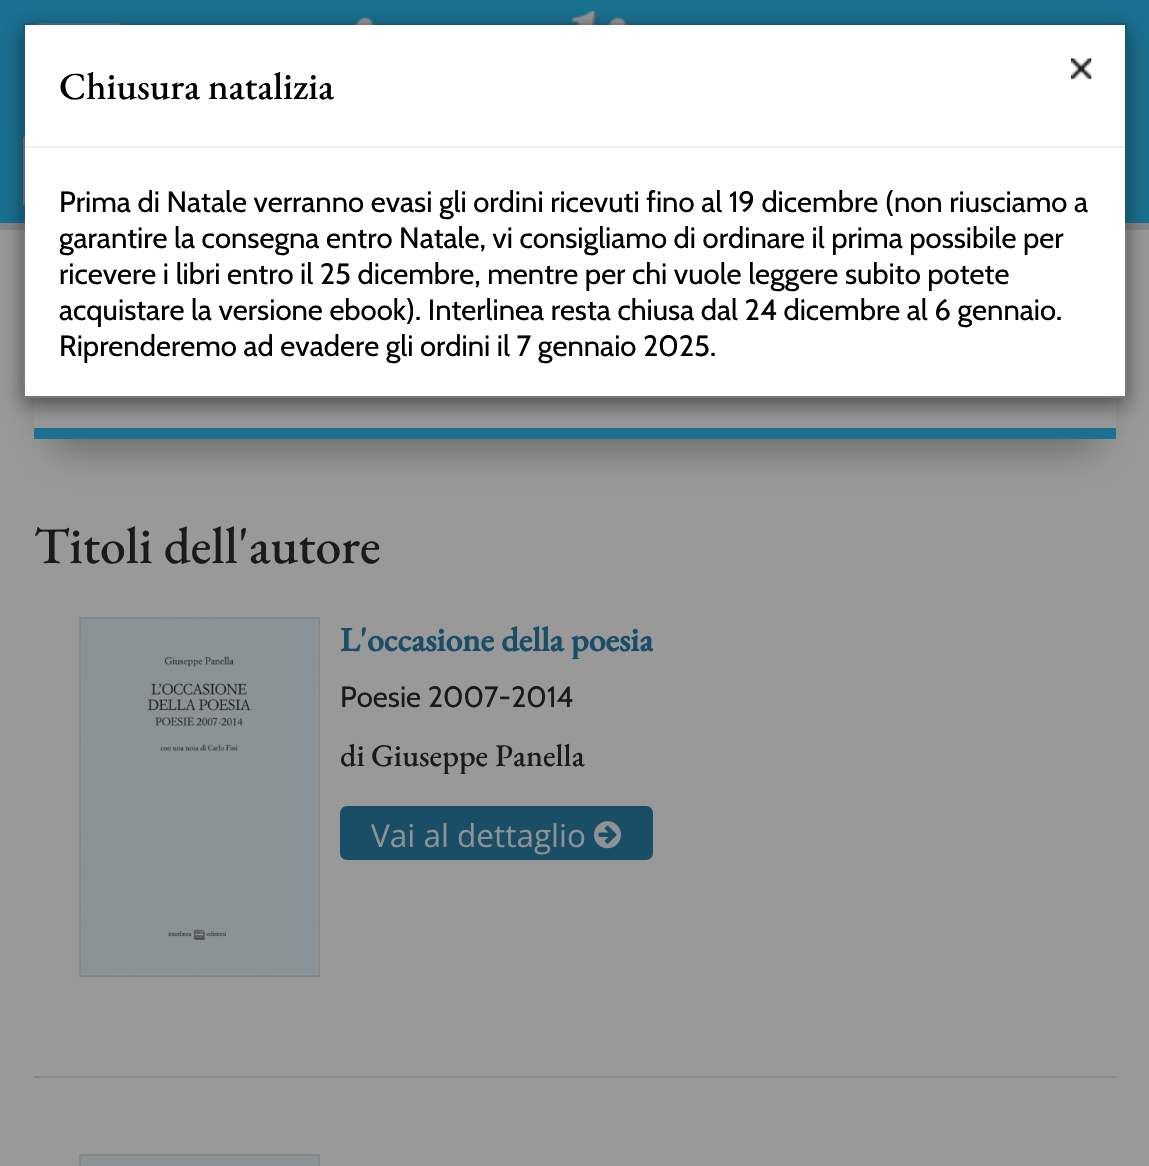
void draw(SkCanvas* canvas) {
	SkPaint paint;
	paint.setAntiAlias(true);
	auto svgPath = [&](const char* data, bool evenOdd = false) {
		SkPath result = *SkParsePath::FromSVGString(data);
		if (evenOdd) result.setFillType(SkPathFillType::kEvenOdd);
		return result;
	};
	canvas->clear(0xff999999);
	paint.setColor(0xff1a7191);
	canvas->drawRect(SkRect::MakeXYWH(0, 0, 1149, 223), paint);
	paint.setColor(0xff888888);
	canvas->drawRect(SkRect::MakeXYWH(0, 223, 1149, 7), paint);
	canvas->drawImageRect(SkImages::DeferredFromEncodedData(SkData::MakeFromFileName("img2.png")), SkRect::MakeXYWH(354, 11, 275, 14), SkSamplingOptions());
	paint.setStroke(true);
	paint.setStrokeWidth(5);
	paint.setColor(0xff4d8194);
	canvas->drawRoundRect(SkRect::MakeXYWH(36.5, 25.5, 85, 85), 4.5, 4.5, paint);
	paint.setStrokeWidth(2);
	paint.setColor(0xff808080);
	canvas->drawRect(SkRect::MakeXYWH(24, 138, 990, 66), paint);
	canvas->save();
	canvas->clipPath(svgPath("M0 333H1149V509H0ZM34 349H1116V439H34Z", true), true);
	paint.setStroke(false);
	paint.setColor(0xff666666);
	paint.setMaskFilter(SkMaskFilter::MakeBlur(kNormal_SkBlurStyle, 20));
	canvas->drawRect(SkRect::MakeXYWH(52, 394, 1046, 54), paint);
	paint.setMaskFilter(nullptr);
	canvas->restore();
	paint.setColor(0xff1a7191);
	canvas->drawRect(SkRect::MakeXYWH(34, 428, 1082, 11), paint);
	canvas->save();
	canvas->clipPath(svgPath("M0 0H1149V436H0ZM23 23H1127V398H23Z", true), true);
	paint.setColor(0x80000000);
	paint.setMaskFilter(SkMaskFilter::MakeBlur(kNormal_SkBlurStyle, 10));
	canvas->drawRect(SkRect::MakeXYWH(23, 29, 1104, 376), paint);
	paint.setMaskFilter(nullptr);
	canvas->restore();
	paint.setColor(0xffffffff);
	canvas->drawRect(SkRect::MakeXYWH(25, 25, 1100, 371), paint);
	paint.setStroke(true);
	paint.setColor(0x33000000);
	canvas->drawRect(SkRect::MakeXYWH(24, 24, 1102, 373), paint);
	paint.setStroke(false);
	paint.setColor(0xffefefef);
	canvas->drawRect(SkRect::MakeXYWH(25, 146, 1100, 2), paint);
	canvas->drawImageRect(SkImages::DeferredFromEncodedData(SkData::MakeFromFileName("img1.png")), SkRect::MakeXYWH(1071, 58, 21, 22), SkSamplingOptions());
	SkFont f1(fontMgr->matchFamilyStyle("EB Garamond", SkFontStyle(500, SkFontStyle::kNormal_Width, SkFontStyle::kUpright_Slant)), 38.25);
	f1.setSubpixel(true);
	paint.setColor(0xff000000);
	canvas->drawString("Chiusura natalizia", 59, 99, f1, paint);
	SkFont f2(fontMgr->matchFamilyStyle("Cabin", SkFontStyle::Normal()), 29.25);
	f2.setSubpixel(true);
	canvas->drawString("Prima di Natale verranno evasi gli ordini ricevuti fino al 19 dicembre (non riusciamo a", 59, 212, f2, paint);
	canvas->drawString("garantire la consegna entro Natale, vi consigliamo di ordinare il prima possibile per", 59, 248, f2, paint);
	canvas->drawString("ricevere i libri entro il 25 dicembre, mentre per chi vuole leggere subito potete", 59, 284, f2, paint);
	canvas->drawString("acquistare la versione ebook). Interlinea resta chiusa dal 24 dicembre al 6 gennaio.", 59, 320, f2, paint);
	canvas->drawString("Riprenderemo ad evadere gli ordini il 7 gennaio 2025.", 59, 356, f2, paint);
	SkFont f3(fontMgr->matchFamilyStyle("EB Garamond", SkFontStyle(500, SkFontStyle::kNormal_Width, SkFontStyle::kUpright_Slant)), 51.75);
	f3.setSubpixel(true);
	paint.setColor(0xff1a1a1a);
	canvas->drawString("Titoli dell'autore", 34, 563, f3, paint);
	canvas->drawImageRect(SkImages::DeferredFromEncodedData(SkData::MakeFromFileName("img3.png")), SkRect::MakeXYWH(81, 619, 237, 356), SkSamplingOptions());
	paint.setStroke(true);
	paint.setColor(0xff888888);
	canvas->drawRect(SkRect::MakeXYWH(80, 618, 239, 358), paint);
	canvas->save();
	canvas->clipRect(SkRect::MakeXYWH(340, 619, 313, 40));
	SkFont f4(fontMgr->matchFamilyStyle("EB Garamond", SkFontStyle::Bold()), 33.75);
	f4.setSubpixel(true);
	paint.setStroke(false);
	paint.setColor(0xff1a4d66);
	canvas->drawString("L'occasione della poesia", 340, 651, f4, paint);
	canvas->restore();
	paint.setColor(0xff1a1a1a);
	canvas->drawString("Poesie 2007-2014", 340, 707, f2, paint);
	SkFont f5(fontMgr->matchFamilyStyle("EB Garamond", SkFontStyle(500, SkFontStyle::kNormal_Width, SkFontStyle::kUpright_Slant)), 31.5);
	f5.setSubpixel(true);
	canvas->drawString("di", 340, 766, f5, paint);
	canvas->save();
	canvas->clipRect(SkRect::MakeXYWH(340, 736, 313, 38));
	canvas->drawString("Giuseppe Panella", 371, 766, f5, paint);
	canvas->restore();
	paint.setColor(0xff1a4d66);
	canvas->drawRoundRect(SkRect::MakeXYWH(340, 806, 313, 54), 7, 7, paint);
	SkFont f6(fontMgr->matchFamilyStyle("Open Sans", SkFontStyle::Normal()), 31.5);
	f6.setSubpixel(true);
	paint.setColor(0xff8d9294);
	canvas->drawString("Vai al dettaglio", 371, 847, f6, paint);
	canvas->drawImageRect(SkImages::DeferredFromEncodedData(SkData::MakeFromFileName("img4.png")), SkRect::MakeXYWH(594, 821, 27, 28), SkSamplingOptions());
	paint.setColor(0xff888888);
	canvas->drawRect(SkRect::MakeXYWH(34, 1076, 1082, 2), paint);
	paint.setColor(0xff8c9498);
	canvas->drawRect(SkRect::MakeXYWH(80, 1155, 239, 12), paint);
	paint.setStroke(true);
	paint.setColor(0xff888888);
	canvas->drawRect(SkRect::MakeXYWH(80, 1155, 239, 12), paint);
}
